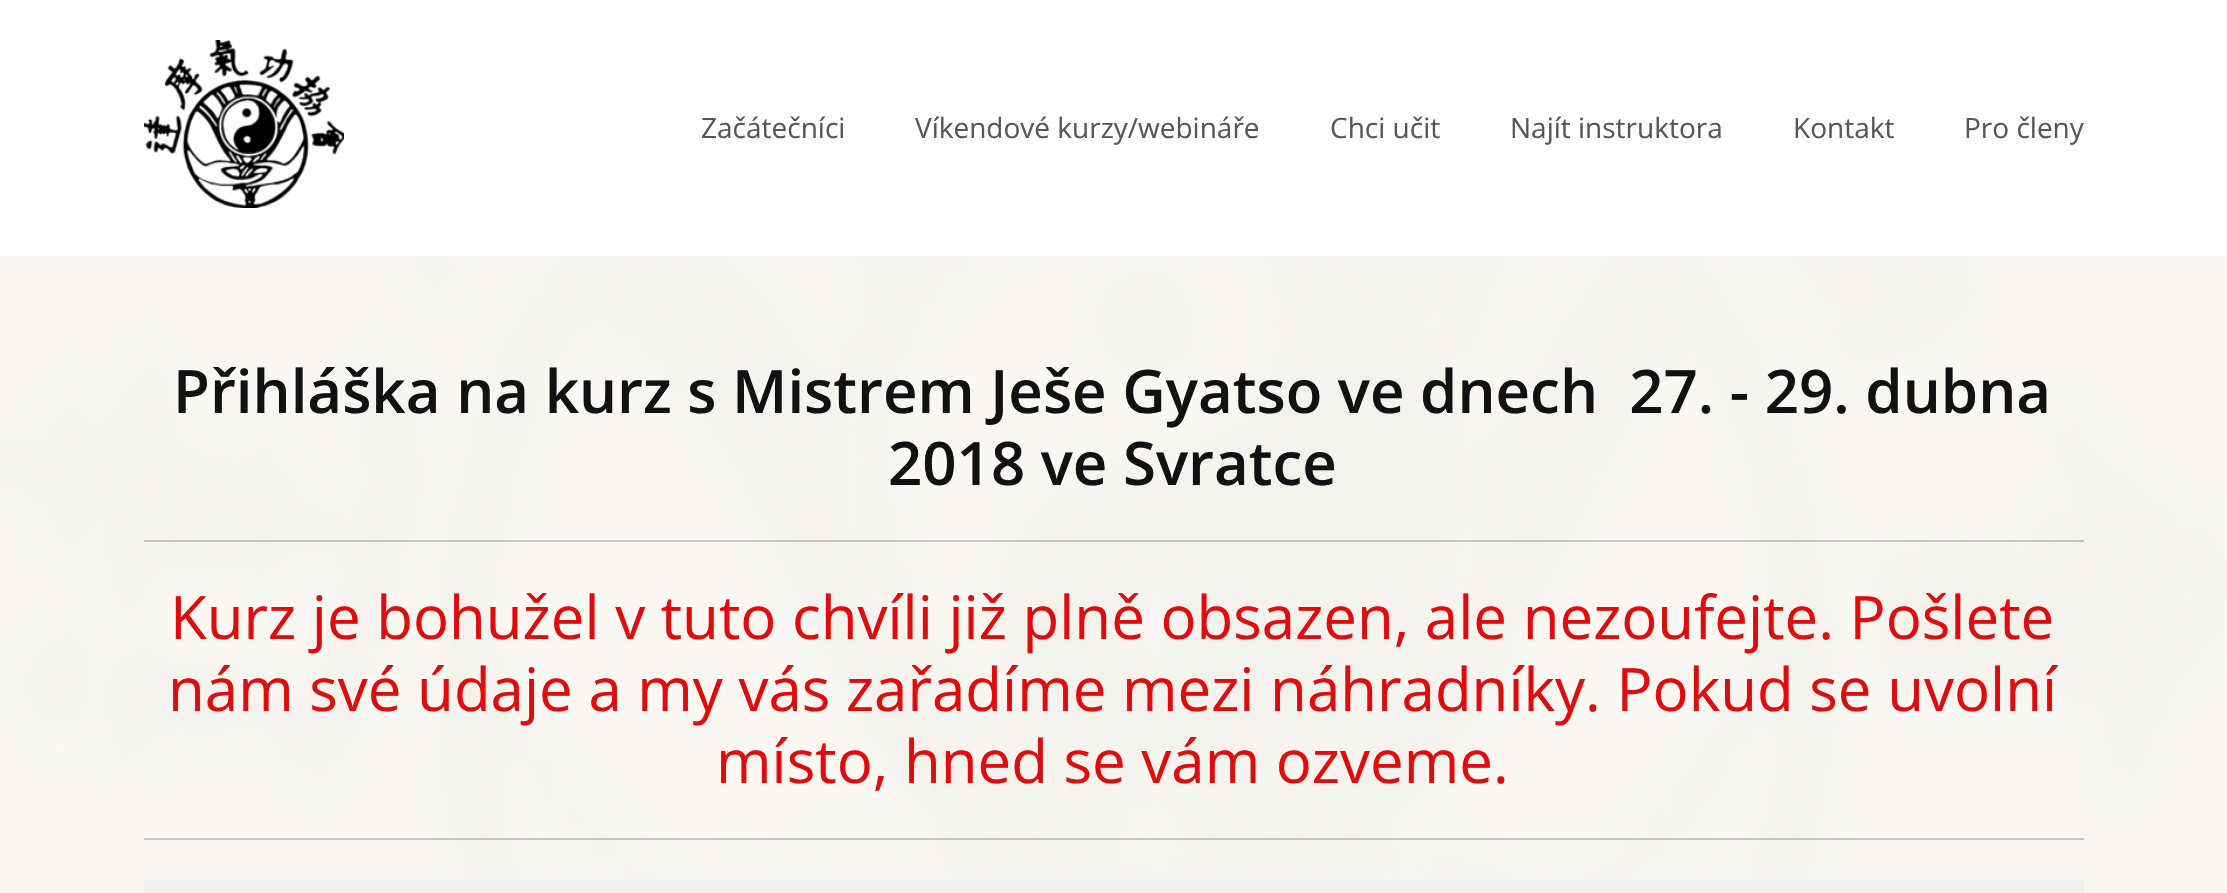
void draw(SkCanvas* canvas) {
	SkPaint paint;
	paint.setAntiAlias(true);
	canvas->clear(0xfff6f1e8);
	paint.setColor(0xffffffff);
	canvas->drawRect(SkRect::MakeXYWH(0, 0, 2227, 256), paint);
	canvas->drawImageRect(SkImages::DeferredFromEncodedData(SkData::MakeFromFileName("img1.png")), SkRect::MakeXYWH(144, 40, 200, 168), SkSamplingOptions());
	SkFont f1(fontMgr->matchFamilyStyle("Open Sans", SkFontStyle::Normal()), 28);
	f1.setSubpixel(true);
	paint.setColor(0xff575757);
	canvas->drawString("Začátečníci", 701, 138, f1, paint);
	canvas->drawString("Víkendové kurzy/webináře", 915, 138, f1, paint);
	canvas->drawString("Chci učit", 1330, 138, f1, paint);
	canvas->drawString("Najít instruktora", 1510, 138, f1, paint);
	canvas->drawString("Kontakt", 1793, 138, f1, paint);
	canvas->drawString("Pro členy", 1964, 138, f1, paint);
	canvas->drawImageRect(SkImages::DeferredFromEncodedData(SkData::MakeFromFileName("img2.png")), SkRect::MakeXYWH(0, 256, 2227, 624), SkSamplingOptions());
	paint.setColor(0x80ffffff);
	canvas->drawRect(SkRect::MakeXYWH(0, 256, 2227, 637), paint);
	SkFont f2(fontMgr->matchFamilyStyle("Open Sans", SkFontStyle(600, SkFontStyle::kNormal_Width, SkFontStyle::kUpright_Slant)), 60);
	f2.setSubpixel(true);
	paint.setColor(0xff111111);
	canvas->drawString("Přihláška na kurz s Mistrem Ješe Gyatso ve dnech  27. - 29. dubna", 173, 413, f2, paint);
	canvas->drawString("2018 ve Svratce", 888, 485, f2, paint);
	paint.setColor(0x33000000);
	canvas->drawRect(SkRect::MakeXYWH(144, 540, 1940, 2), paint);
	SkFont f3(fontMgr->matchFamilyStyle("Open Sans", SkFontStyle::Normal()), 60);
	f3.setSubpixel(true);
	paint.setColor(0xffe00b0b);
	canvas->drawString("Kurz je bohužel v tuto chvíli již plně obsazen, ale nezoufejte. Pošlete", 170, 639, f3, paint);
	canvas->drawString("nám své údaje a my vás zařadíme mezi náhradníky. Pokud se uvolní", 168, 711, f3, paint);
	canvas->drawString("místo, hned se vám ozveme.", 716, 783, f3, paint);
	paint.setColor(0x33000000);
	canvas->drawRect(SkRect::MakeXYWH(144, 838, 1940, 2), paint);
	paint.setColor(0xffeeeeee);
	canvas->drawRect(SkRect::MakeXYWH(144, 880, 1940, 13), paint);
}
